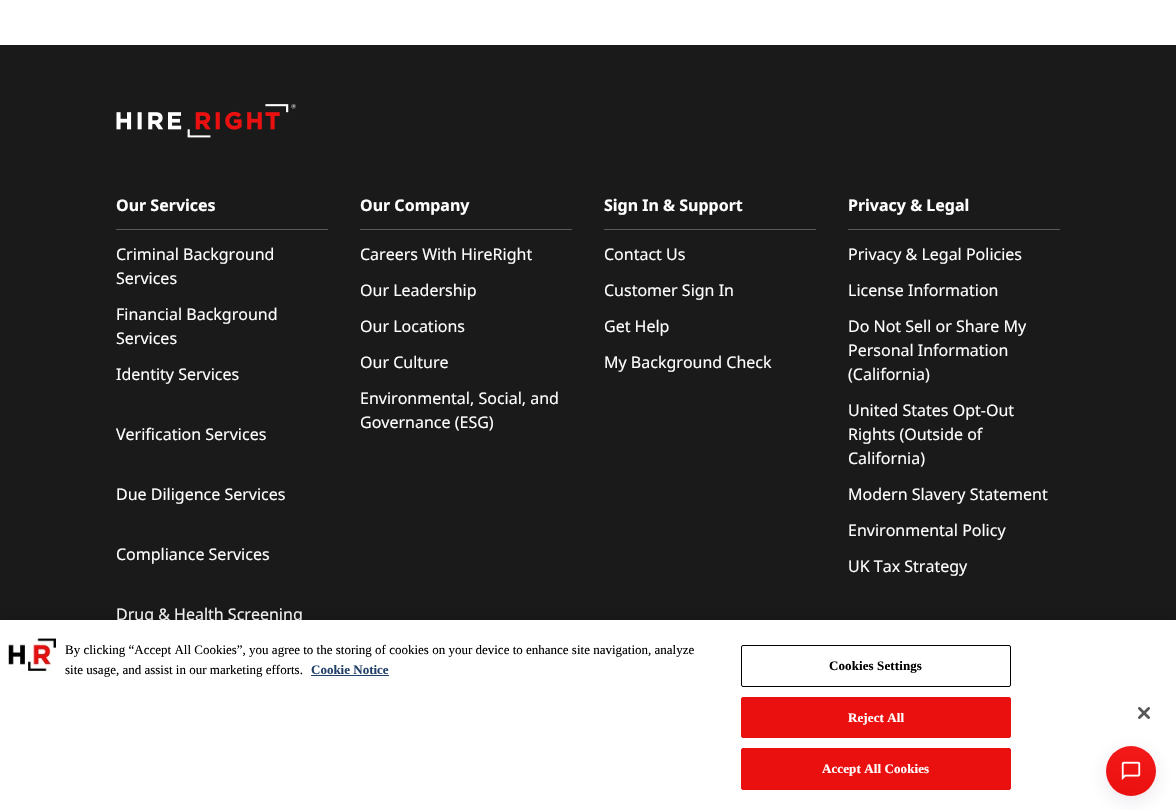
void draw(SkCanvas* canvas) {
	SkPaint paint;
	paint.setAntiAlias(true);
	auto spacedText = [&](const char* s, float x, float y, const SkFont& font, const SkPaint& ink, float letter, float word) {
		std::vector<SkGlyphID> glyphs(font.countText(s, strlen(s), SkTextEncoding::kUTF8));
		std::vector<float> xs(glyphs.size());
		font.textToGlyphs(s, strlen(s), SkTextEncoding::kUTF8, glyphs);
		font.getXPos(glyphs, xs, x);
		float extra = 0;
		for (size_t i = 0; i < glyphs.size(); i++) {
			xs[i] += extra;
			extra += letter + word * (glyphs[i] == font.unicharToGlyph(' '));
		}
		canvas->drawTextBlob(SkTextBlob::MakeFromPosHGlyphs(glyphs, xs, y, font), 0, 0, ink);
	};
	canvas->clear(0xffffffff);
	paint.setColor(0xff1a1a1a);
	canvas->drawRect(SkRect::MakeXYWH(0, 45, 1176, 575), paint);
	canvas->drawImageRect(SkImages::DeferredFromEncodedData(SkData::MakeFromFileName("img1.png")), SkRect::MakeXYWH(116, 104, 180, 34), SkSamplingOptions());
	SkFont f1(fontMgr->matchFamilyStyle("Noto Sans", SkFontStyle::Bold()), 16);
	f1.setSubpixel(true);
	paint.setColor(0xffffffff);
	canvas->drawString("Our Services", 116, 211, f1, paint);
	paint.setColor(0xff595959);
	canvas->drawRect(SkRect::MakeXYWH(116, 229, 212, 1), paint);
	SkFont f2(fontMgr->matchFamilyStyle("Noto Sans", SkFontStyle::Normal()), 16);
	f2.setSubpixel(true);
	paint.setColor(0xffffffff);
	canvas->drawString("Criminal Background", 116, 260, f2, paint);
	canvas->drawString("Services", 116, 284, f2, paint);
	canvas->drawString("Financial Background", 116, 320, f2, paint);
	canvas->drawString("Services", 116, 344, f2, paint);
	canvas->drawString("Identity Services", 116, 380, f2, paint);
	canvas->drawString("Verification Services", 116, 440, f2, paint);
	canvas->drawString("Due Diligence Services", 116, 500, f2, paint);
	canvas->drawString("Compliance Services", 116, 560, f2, paint);
	canvas->drawString("Drug & Health Screening", 116, 620, f2, paint);
	canvas->drawString("Our Company", 360, 211, f1, paint);
	paint.setColor(0xff595959);
	canvas->drawRect(SkRect::MakeXYWH(360, 229, 212, 1), paint);
	paint.setColor(0xffffffff);
	canvas->drawString("Careers With HireRight", 360, 260, f2, paint);
	canvas->drawString("Our Leadership", 360, 296, f2, paint);
	canvas->drawString("Our Locations", 360, 332, f2, paint);
	canvas->drawString("Our Culture", 360, 368, f2, paint);
	canvas->drawString("Environmental, Social, and", 360, 404, f2, paint);
	canvas->drawString("Governance (ESG)", 360, 428, f2, paint);
	canvas->drawString("Sign In & Support", 604, 211, f1, paint);
	paint.setColor(0xff595959);
	canvas->drawRect(SkRect::MakeXYWH(604, 229, 212, 1), paint);
	paint.setColor(0xffffffff);
	canvas->drawString("Contact Us", 604, 260, f2, paint);
	canvas->drawString("Customer Sign In", 604, 296, f2, paint);
	canvas->drawString("Get Help", 604, 332, f2, paint);
	canvas->drawString("My Background Check", 604, 368, f2, paint);
	canvas->drawString("Privacy & Legal", 848, 211, f1, paint);
	paint.setColor(0xff595959);
	canvas->drawRect(SkRect::MakeXYWH(848, 229, 212, 1), paint);
	paint.setColor(0xffffffff);
	canvas->drawString("Privacy & Legal Policies", 848, 260, f2, paint);
	canvas->drawString("License Information", 848, 296, f2, paint);
	canvas->drawString("Do Not Sell or Share My", 848, 332, f2, paint);
	canvas->drawString("Personal Information", 848, 356, f2, paint);
	canvas->drawString("(California)", 848, 380, f2, paint);
	canvas->drawString("United States Opt-Out", 848, 416, f2, paint);
	canvas->drawString("Rights (Outside of", 848, 440, f2, paint);
	canvas->drawString("California)", 848, 464, f2, paint);
	canvas->drawString("Modern Slavery Statement", 848, 500, f2, paint);
	canvas->drawString("Environmental Policy", 848, 536, f2, paint);
	canvas->drawString("UK Tax Strategy", 848, 572, f2, paint);
	paint.setColor(0x33000000);
	paint.setMaskFilter(SkMaskFilter::MakeBlur(kNormal_SkBlurStyle, 9));
	canvas->drawRect(SkRect::MakeXYWH(0, 620, 1176, 190), paint);
	paint.setMaskFilter(nullptr);
	paint.setColor(0xffffffff);
	canvas->drawRect(SkRect::MakeXYWH(0, 620, 1176, 190), paint);
	canvas->drawImageRect(SkImages::DeferredFromEncodedData(SkData::MakeFromFileName("img2.png")), SkRect::MakeXYWH(8, 636, 48, 38), SkSamplingOptions());
	SkFont f3(fontMgr->matchFamilyStyle("Liberation Serif", SkFontStyle::Normal()), 13);
	f3.setSubpixel(true);
	paint.setColor(0xff000000);
	canvas->drawString("By clicking “Accept All Cookies”, you agree to the storing of cookies on your device to enhance site navigation, analyze", 65, 654, f3, paint);
	canvas->drawString("site usage, and assist in our marketing efforts.", 65, 674, f3, paint);
	SkFont f4(fontMgr->matchFamilyStyle("Liberation Serif", SkFontStyle::Bold()), 13);
	f4.setSubpixel(true);
	paint.setColor(0xff214069);
	canvas->drawString("Cookie Notice", 311, 674, f4, paint);
	canvas->drawRect(SkRect::MakeXYWH(311, 675, 78, 1), paint);
	paint.setStroke(true);
	paint.setStrokeWidth(1);
	paint.setColor(0xff000000);
	canvas->drawRoundRect(SkRect::MakeXYWH(741.5, 645.5, 269, 41), 1.5, 1.5, paint);
	paint.setStroke(false);
	spacedText("Cookies Settings", 829, 670, f4, paint, 0.1, 0);
	paint.setColor(0xffea1010);
	canvas->drawRoundRect(SkRect::MakeXYWH(741.5, 697.5, 269, 40), 1.5, 1.5, paint);
	paint.setStroke(true);
	canvas->drawRoundRect(SkRect::MakeXYWH(741.5, 697.5, 269, 40), 1.5, 1.5, paint);
	paint.setStroke(false);
	paint.setColor(0xffffffff);
	spacedText("Reject All", 848, 722, f4, paint, 0.1, 0);
	paint.setColor(0xffea1010);
	canvas->drawRoundRect(SkRect::MakeXYWH(741.5, 748.5, 269, 41), 1.5, 1.5, paint);
	paint.setStroke(true);
	canvas->drawRoundRect(SkRect::MakeXYWH(741.5, 748.5, 269, 41), 1.5, 1.5, paint);
	paint.setStroke(false);
	paint.setColor(0xffffffff);
	spacedText("Accept All Cookies", 822, 773, f4, paint, 0.1, 0);
	canvas->drawImageRect(SkImages::DeferredFromEncodedData(SkData::MakeFromFileName("img3.png")), SkRect::MakeXYWH(1138, 707, 12, 12), SkSamplingOptions());
	paint.setColor(0x33977c9c);
	paint.setMaskFilter(SkMaskFilter::MakeBlur(kNormal_SkBlurStyle, 9));
	canvas->drawRoundRect(SkRect::MakeXYWH(1106, 751, 50, 50), 25, 25, paint);
	paint.setMaskFilter(nullptr);
	{
		const SkColor colors[] = {0xfff41a1a, 0xffea1010};
		const float stops[] = {0, 1};
		const SkPoint ends[] = {{1133, 744}, {1129, 798}};
		paint.setShader(SkGradientShader::MakeLinear(ends, colors, stops, 2, SkTileMode::kClamp));
		paint.setAlpha(255);
	}
	canvas->drawCircle(1131, 771, 25, paint);
	canvas->drawImageRect(SkImages::DeferredFromEncodedData(SkData::MakeFromFileName("img4.png")), SkRect::MakeXYWH(1121, 761, 20, 19), SkSamplingOptions());
}
